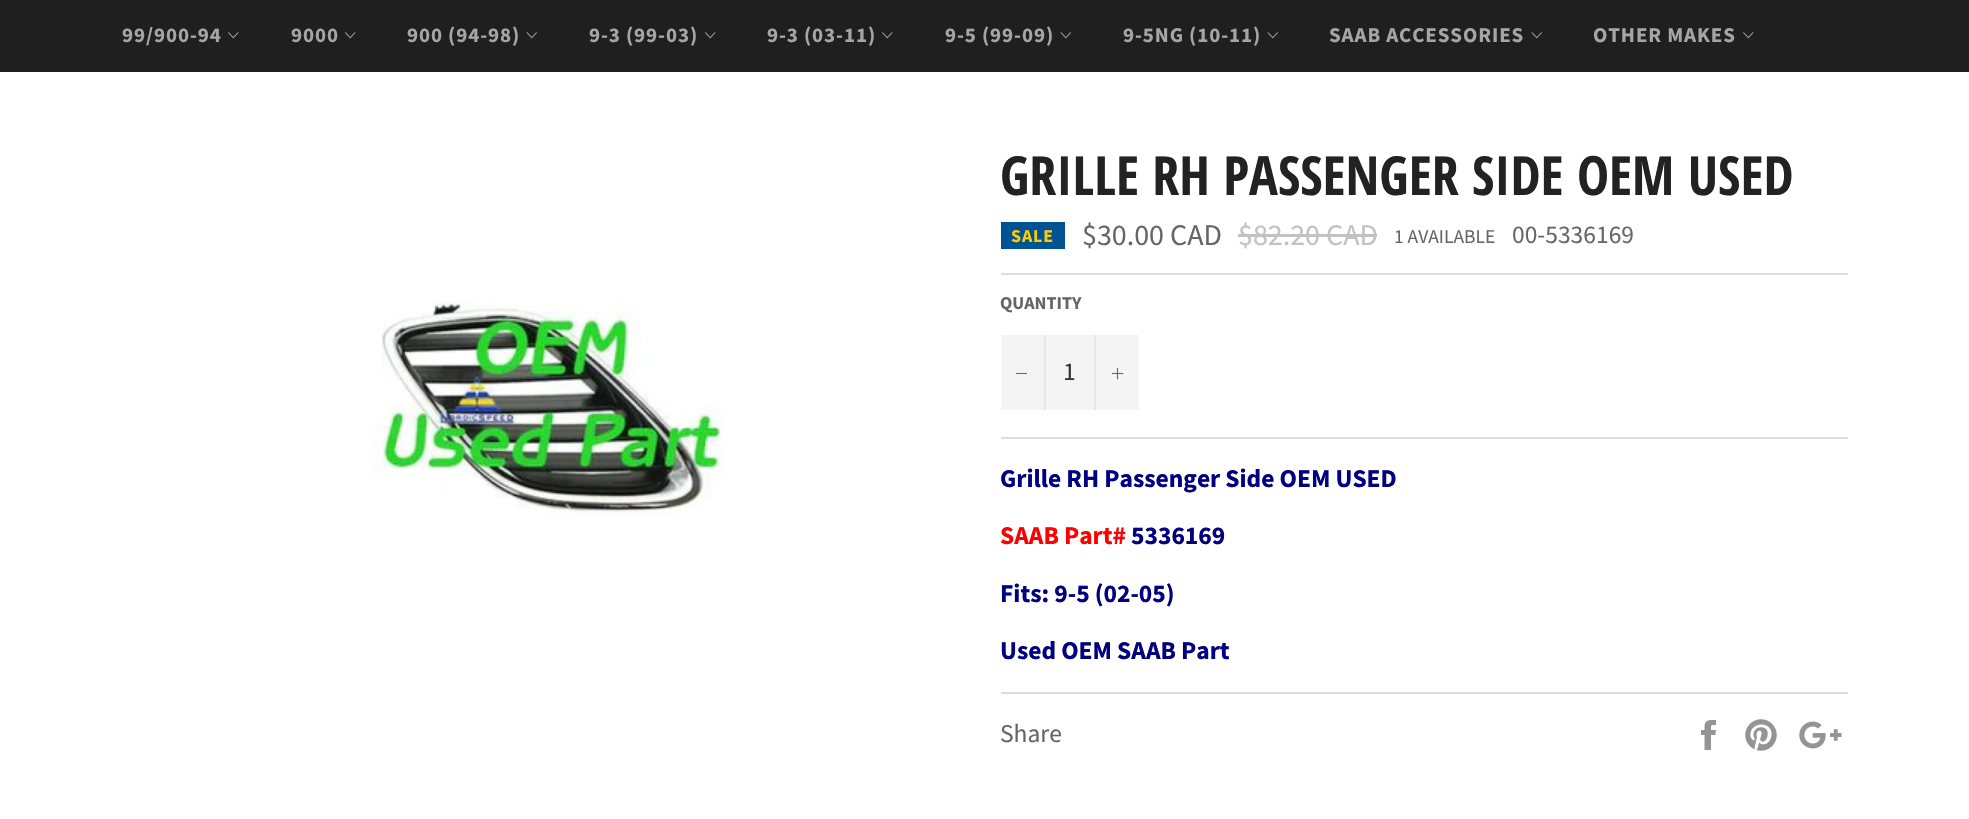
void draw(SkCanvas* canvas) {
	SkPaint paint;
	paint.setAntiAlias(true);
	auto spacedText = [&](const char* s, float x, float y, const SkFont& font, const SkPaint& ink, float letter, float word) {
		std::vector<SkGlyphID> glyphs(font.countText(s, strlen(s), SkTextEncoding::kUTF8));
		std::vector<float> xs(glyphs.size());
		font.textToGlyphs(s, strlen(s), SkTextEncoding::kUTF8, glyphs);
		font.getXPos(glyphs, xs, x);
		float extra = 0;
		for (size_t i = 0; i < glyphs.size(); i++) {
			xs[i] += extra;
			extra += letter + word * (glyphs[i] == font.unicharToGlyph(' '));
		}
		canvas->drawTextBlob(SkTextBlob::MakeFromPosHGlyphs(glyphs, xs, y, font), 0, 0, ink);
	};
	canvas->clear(0xffffffff);
	paint.setColor(0xff1f1f1f);
	canvas->drawRect(SkRect::MakeXYWH(0, 0, 1969, 72), paint);
	SkFont f1(fontMgr->matchFamilyStyle("Source Sans Pro", SkFontStyle::Bold()), 21);
	f1.setSubpixel(true);
	paint.setColor(0xffa5a5a5);
	spacedText("99/900-94", 122, 42, f1, paint, 0.9, 0);
	canvas->drawImageRect(SkImages::DeferredFromEncodedData(SkData::MakeFromFileName("img1.png")), SkRect::MakeXYWH(228, 32, 11, 7), SkSamplingOptions());
	spacedText("9000", 291, 42, f1, paint, 0.9, 0);
	canvas->drawImageRect(SkImages::DeferredFromEncodedData(SkData::MakeFromFileName("img1.png")), SkRect::MakeXYWH(345, 32, 11, 7), SkSamplingOptions());
	spacedText("900 (94-98)", 407, 42, f1, paint, 0.9, 0);
	canvas->drawImageRect(SkImages::DeferredFromEncodedData(SkData::MakeFromFileName("img2.png")), SkRect::MakeXYWH(526, 32, 11, 7), SkSamplingOptions());
	spacedText("9-3 (99-03)", 589, 42, f1, paint, 0.9, 0);
	canvas->drawImageRect(SkImages::DeferredFromEncodedData(SkData::MakeFromFileName("img1.png")), SkRect::MakeXYWH(705, 32, 11, 7), SkSamplingOptions());
	spacedText("9-3 (03-11)", 767, 42, f1, paint, 0.9, 0);
	canvas->drawImageRect(SkImages::DeferredFromEncodedData(SkData::MakeFromFileName("img1.png")), SkRect::MakeXYWH(882, 32, 11, 7), SkSamplingOptions());
	spacedText("9-5 (99-09)", 945, 42, f1, paint, 0.9, 0);
	canvas->drawImageRect(SkImages::DeferredFromEncodedData(SkData::MakeFromFileName("img2.png")), SkRect::MakeXYWH(1060, 32, 11, 7), SkSamplingOptions());
	spacedText("9-5NG (10-11)", 1123, 42, f1, paint, 0.9, 0);
	canvas->drawImageRect(SkImages::DeferredFromEncodedData(SkData::MakeFromFileName("img2.png")), SkRect::MakeXYWH(1267, 32, 11, 7), SkSamplingOptions());
	spacedText("SAAB ACCESSORIES", 1329, 42, f1, paint, 0.9, 0);
	canvas->drawImageRect(SkImages::DeferredFromEncodedData(SkData::MakeFromFileName("img2.png")), SkRect::MakeXYWH(1531, 32, 11, 7), SkSamplingOptions());
	spacedText("OTHER MAKES", 1593, 42, f1, paint, 0.9, 0);
	canvas->drawImageRect(SkImages::DeferredFromEncodedData(SkData::MakeFromFileName("img1.png")), SkRect::MakeXYWH(1743, 32, 11, 7), SkSamplingOptions());
	canvas->drawImageRect(SkImages::DeferredFromEncodedData(SkData::MakeFromFileName("img3.png")), SkRect::MakeXYWH(371, 300, 354, 216), SkSamplingOptions());
	SkFont f2(fontMgr->matchFamilyStyle("Open Sans Condensed", SkFontStyle::Bold()), 54);
	f2.setSubpixel(true);
	paint.setColor(0xff222222);
	canvas->drawString("GRILLE RH PASSENGER SIDE OEM USED", 1000, 195, f2, paint);
	paint.setColor(0xff005392);
	canvas->drawRect(SkRect::MakeXYWH(1001, 222, 64, 27), paint);
	SkFont f3(fontMgr->matchFamilyStyle("Source Sans Pro", SkFontStyle::Bold()), 18);
	f3.setSubpixel(true);
	paint.setColor(0xfffecc07);
	spacedText("SALE", 1011, 242, f3, paint, 0.9, 0);
	SkFont f4(fontMgr->matchFamilyStyle("Source Sans Pro", SkFontStyle::Normal()), 30);
	f4.setSubpixel(true);
	paint.setColor(0xff666666);
	canvas->drawString("$30.00 CAD", 1082, 245, f4, paint);
	paint.setColor(0xffc2c2c2);
	canvas->drawString("$82.20 CAD", 1238, 245, f4, paint);
	canvas->drawRect(SkRect::MakeXYWH(1238, 234, 139, 3), paint);
	SkFont f5(fontMgr->matchFamilyStyle("Source Sans Pro", SkFontStyle::Normal()), 19.5);
	f5.setSubpixel(true);
	paint.setColor(0xff666666);
	canvas->drawString("1 AVAILABLE", 1394, 243, f5, paint);
	SkFont f6(fontMgr->matchFamilyStyle("Source Sans Pro", SkFontStyle::Normal()), 25.5);
	f6.setSubpixel(true);
	canvas->drawString("00-5336169", 1512, 243, f6, paint);
	paint.setColor(0xffdddddd);
	canvas->drawRect(SkRect::MakeXYWH(1001, 273, 847, 2), paint);
	paint.setColor(0xff666666);
	canvas->drawString("QUANTITY", 1000, 309, f3, paint);
	paint.setColor(0xfff4f4f4);
	canvas->drawRect(SkRect::MakeXYWH(1001, 335, 138, 75), paint);
	paint.setColor(0xffe7e7e7);
	canvas->drawRect(SkRect::MakeXYWH(1044, 335, 2, 75), paint);
	paint.setColor(0xff666666);
	canvas->drawRect(SkRect::MakeXYWH(1016, 373, 11, 1), paint);
	paint.setColor(0xff333333);
	canvas->drawString("1", 1063, 380, f6, paint);
	paint.setColor(0xffe7e7e7);
	canvas->drawRect(SkRect::MakeXYWH(1094, 335, 2, 75), paint);
	canvas->drawImageRect(SkImages::DeferredFromEncodedData(SkData::MakeFromFileName("img4.png")), SkRect::MakeXYWH(1112, 368, 12, 12), SkSamplingOptions());
	paint.setColor(0xffdddddd);
	canvas->drawRect(SkRect::MakeXYWH(1001, 437, 847, 2), paint);
	SkFont f7(fontMgr->matchFamilyStyle("Source Sans Pro", SkFontStyle::Bold()), 25.5);
	f7.setSubpixel(true);
	paint.setColor(0xff000080);
	canvas->drawString("Grille RH Passenger Side OEM USED", 1000, 487, f7, paint);
	paint.setColor(0xffff0000);
	canvas->drawString("SAAB Part#", 1000, 544, f7, paint);
	paint.setColor(0xff000080);
	canvas->drawString("5336169", 1131, 544, f7, paint);
	canvas->drawString("Fits: 9-5 (02-05)", 1000, 602, f7, paint);
	canvas->drawString("Used OEM SAAB Part", 1000, 659, f7, paint);
	paint.setColor(0xffdddddd);
	canvas->drawRect(SkRect::MakeXYWH(1001, 692, 847, 2), paint);
	paint.setColor(0xff666666);
	canvas->drawString("Share", 1000, 742, f6, paint);
	canvas->drawImageRect(SkImages::DeferredFromEncodedData(SkData::MakeFromFileName("img5.png")), SkRect::MakeXYWH(1701, 720, 15, 30), SkSamplingOptions());
	canvas->drawImageRect(SkImages::DeferredFromEncodedData(SkData::MakeFromFileName("img6.png")), SkRect::MakeXYWH(1745, 719, 32, 32), SkSamplingOptions());
	canvas->drawImageRect(SkImages::DeferredFromEncodedData(SkData::MakeFromFileName("img7.png")), SkRect::MakeXYWH(1799, 721, 43, 28), SkSamplingOptions());
}
